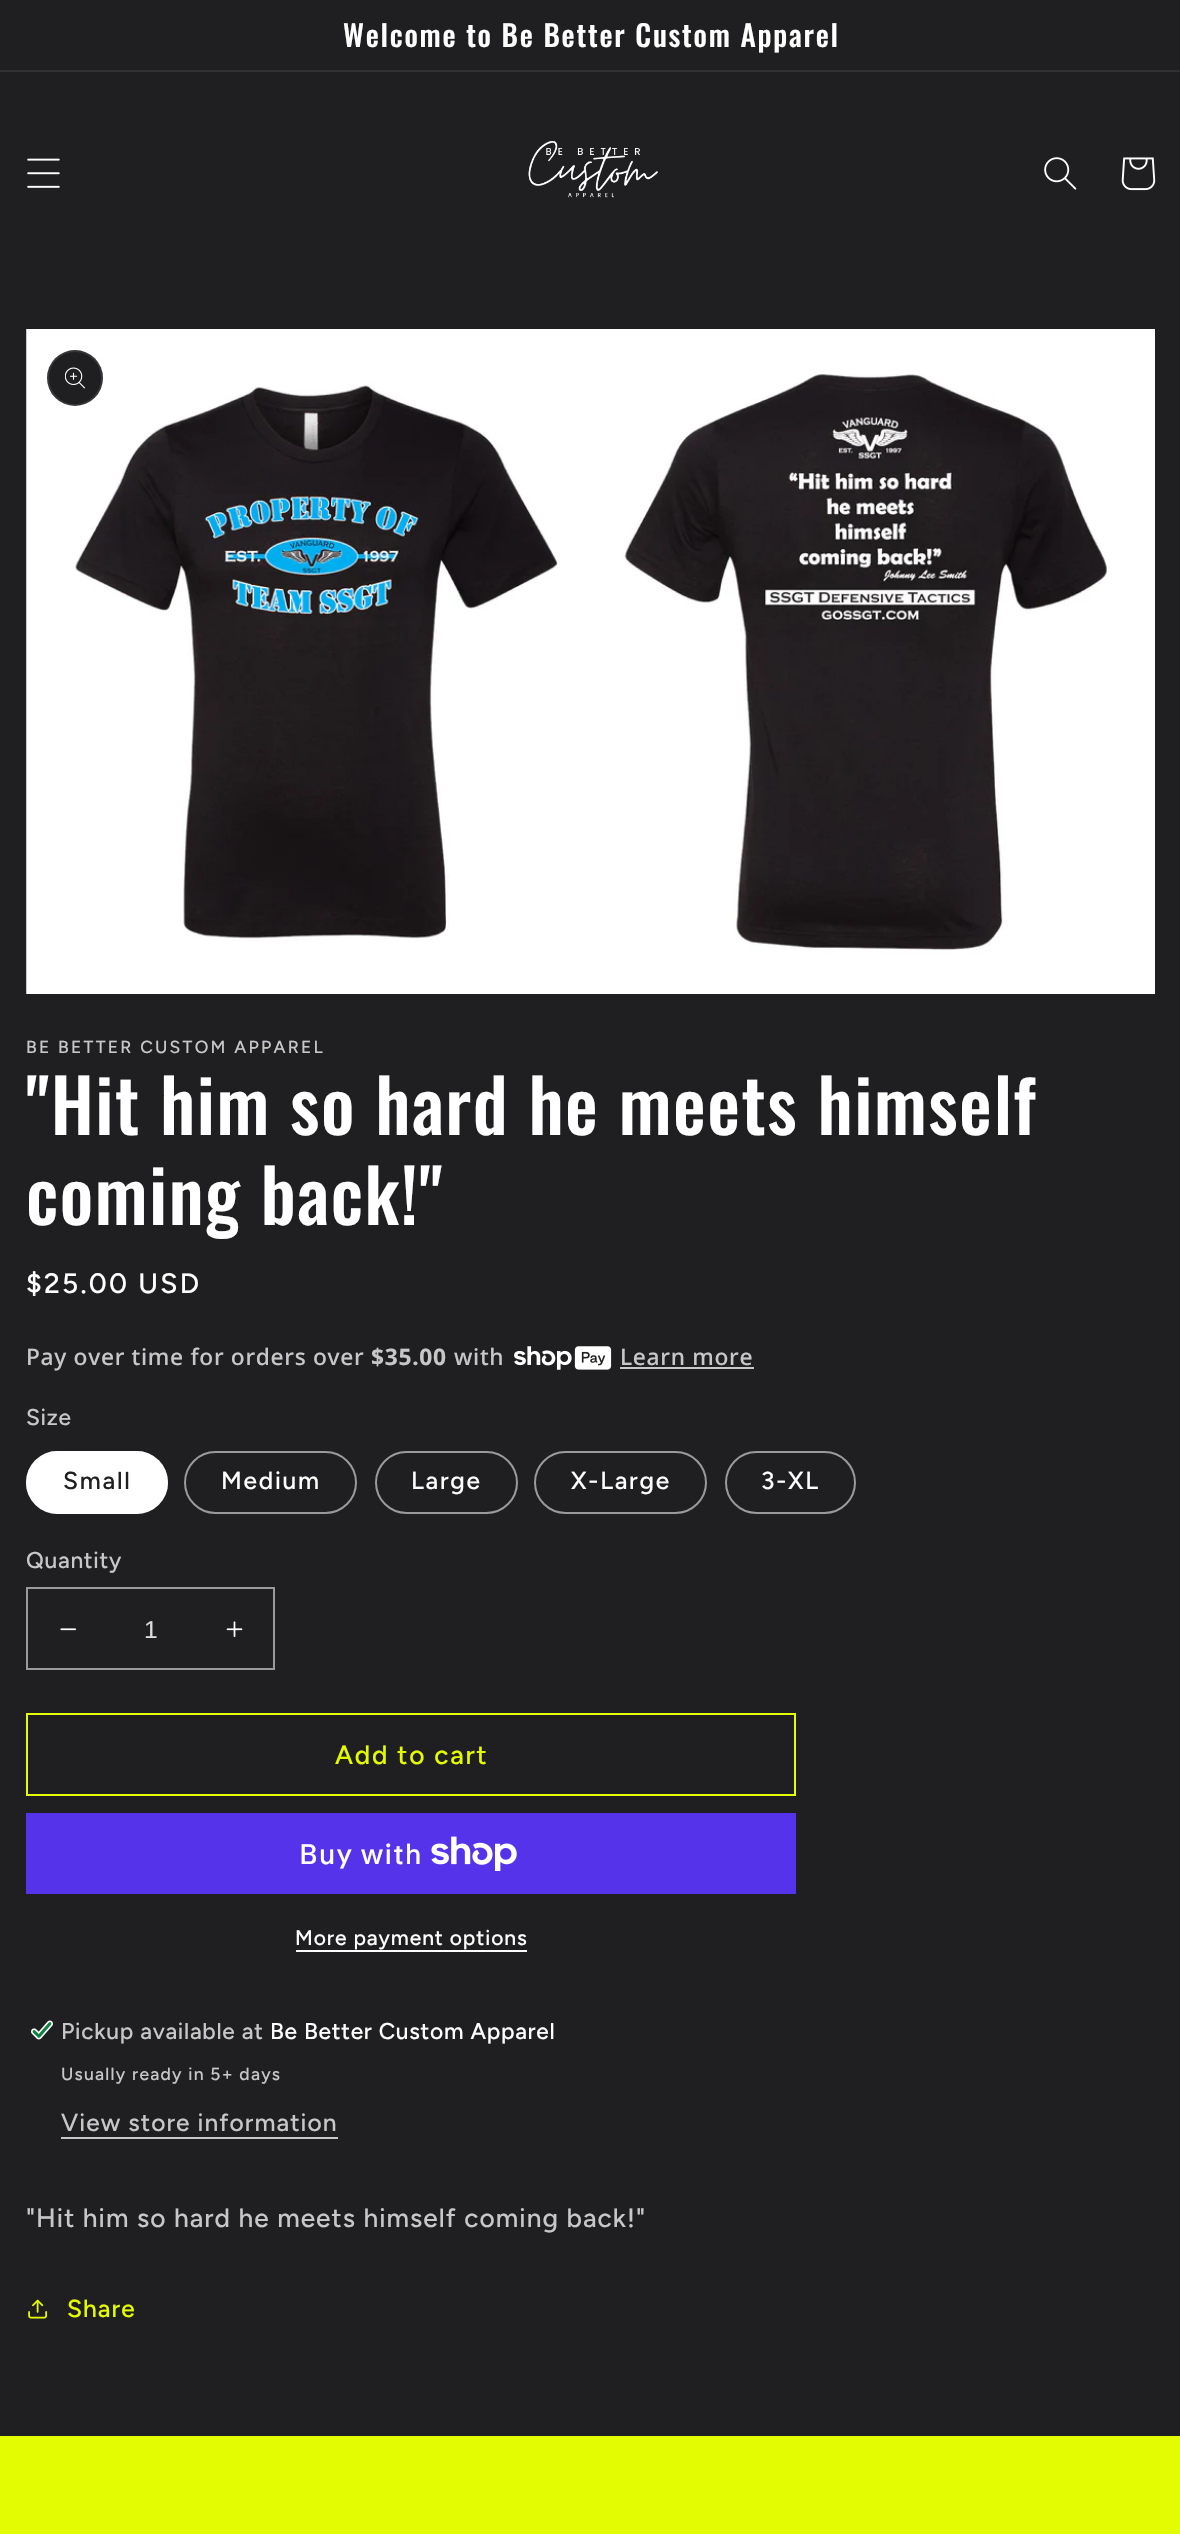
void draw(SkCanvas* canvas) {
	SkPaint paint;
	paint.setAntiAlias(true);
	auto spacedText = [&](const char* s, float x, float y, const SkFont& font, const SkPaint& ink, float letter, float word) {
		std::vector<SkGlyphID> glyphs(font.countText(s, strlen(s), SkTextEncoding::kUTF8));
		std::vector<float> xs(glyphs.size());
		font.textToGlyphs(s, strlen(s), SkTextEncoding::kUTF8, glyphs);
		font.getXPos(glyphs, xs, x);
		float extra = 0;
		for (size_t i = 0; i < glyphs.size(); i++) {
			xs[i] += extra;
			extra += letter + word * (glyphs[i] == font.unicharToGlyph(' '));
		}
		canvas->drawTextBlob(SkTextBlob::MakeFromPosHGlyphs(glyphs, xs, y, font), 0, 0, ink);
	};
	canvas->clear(0xff1f1f21);
	paint.setColor(0xff313133);
	canvas->drawRect(SkRect::MakeXYWH(0, 70, 1180, 2), paint);
	SkFont f1(fontMgr->matchFamilyStyle("Oswald", SkFontStyle(500, SkFontStyle::kNormal_Width, SkFontStyle::kUpright_Slant)), 29.4);
	f1.setSubpixel(true);
	paint.setColor(0xffffffff);
	spacedText("Welcome to Be Better Custom Apparel", 343, 47, f1, paint, 1.75, 0);
	canvas->drawImageRect(SkImages::DeferredFromEncodedData(SkData::MakeFromFileName("img1.png")), SkRect::MakeXYWH(27, 158, 33, 30), SkSamplingOptions());
	canvas->drawImageRect(SkImages::DeferredFromEncodedData(SkData::MakeFromFileName("img2.png")), SkRect::MakeXYWH(528, 141, 130, 57), SkSamplingOptions());
	canvas->drawImageRect(SkImages::DeferredFromEncodedData(SkData::MakeFromFileName("img3.png")), SkRect::MakeXYWH(1044, 157, 33, 33), SkSamplingOptions());
	canvas->drawImageRect(SkImages::DeferredFromEncodedData(SkData::MakeFromFileName("img4.png")), SkRect::MakeXYWH(1121, 157, 35, 34), SkSamplingOptions());
	canvas->drawImageRect(SkImages::DeferredFromEncodedData(SkData::MakeFromFileName("img5.png")), SkRect::MakeXYWH(26, 329, 1129, 665), SkSamplingOptions());
	paint.setColor(0xff1f1f21);
	canvas->drawCircle(75, 378, 28, paint);
	paint.setStroke(true);
	paint.setStrokeWidth(2);
	paint.setColor(0x1affffff);
	canvas->drawCircle(75, 378, 27, paint);
	canvas->drawImageRect(SkImages::DeferredFromEncodedData(SkData::MakeFromFileName("img6.png")), SkRect::MakeXYWH(65, 367, 20, 22), SkSamplingOptions());
	SkFont f2(fontMgr->matchFamilyStyle("Figtree", SkFontStyle(500, SkFontStyle::kNormal_Width, SkFontStyle::kUpright_Slant)), 17.5);
	f2.setSubpixel(true);
	paint.setStroke(false);
	paint.setColor(0xffc7c7c8);
	spacedText("BE BETTER CUSTOM APPAREL", 26, 1053, f2, paint, 2.25, 0);
	SkFont f3(fontMgr->matchFamilyStyle("Oswald", SkFontStyle(500, SkFontStyle::kNormal_Width, SkFontStyle::kUpright_Slant)), 73.5);
	f3.setSubpixel(true);
	paint.setColor(0xffffffff);
	spacedText("\"Hit him so hard he meets himself", 26, 1135, f3, paint, 1.5, 0);
	spacedText("coming back!\"", 26, 1225, f3, paint, 1.5, 0);
	SkFont f4(fontMgr->matchFamilyStyle("Figtree", SkFontStyle(500, SkFontStyle::kNormal_Width, SkFontStyle::kUpright_Slant)), 28);
	f4.setSubpixel(true);
	spacedText("$25.00 USD", 26, 1293, f4, paint, 2.25, 0);
	SkFont f5(fontMgr->matchFamilyStyle("Noto Sans", SkFontStyle(500, SkFontStyle::kNormal_Width, SkFontStyle::kUpright_Slant)), 22.75);
	f5.setSubpixel(true);
	paint.setColor(0xffc7c7c8);
	spacedText("Pay over time for orders over", 26, 1365, f5, paint, 0.7, 0);
	SkFont f6(fontMgr->matchFamilyStyle("Noto Sans", SkFontStyle::Bold()), 22.75);
	f6.setSubpixel(true);
	spacedText("$35.00", 371, 1365, f6, paint, 0.7, 0);
	spacedText("with", 454, 1365, f5, paint, 0.7, 0);
	canvas->drawImageRect(SkImages::DeferredFromEncodedData(SkData::MakeFromFileName("img7.png")), SkRect::MakeXYWH(514, 1346, 98, 24), SkSamplingOptions());
	spacedText("Learn more", 620, 1365, f5, paint, 0.7, 0);
	canvas->drawRect(SkRect::MakeXYWH(620, 1367, 134, 2), paint);
	SkFont f7(fontMgr->matchFamilyStyle("Figtree", SkFontStyle(500, SkFontStyle::kNormal_Width, SkFontStyle::kUpright_Slant)), 22.75);
	f7.setSubpixel(true);
	spacedText("Size", 26, 1425, f7, paint, 0.7, 0);
	paint.setColor(0xffffffff);
	canvas->drawRoundRect(SkRect::MakeXYWH(26, 1451, 142, 63), 31.5, 31.5, paint);
	paint.setStroke(true);
	paint.setColor(0x8cffffff);
	canvas->drawRoundRect(SkRect::MakeXYWH(27, 1452, 140, 61), 30.5, 30.5, paint);
	SkFont f8(fontMgr->matchFamilyStyle("Figtree", SkFontStyle(500, SkFontStyle::kNormal_Width, SkFontStyle::kUpright_Slant)), 24.5);
	f8.setSubpixel(true);
	paint.setStroke(false);
	paint.setColor(0xff1f1f21);
	spacedText("Small", 63, 1489, f8, paint, 1.75, 0);
	paint.setStroke(true);
	paint.setColor(0xff9a9a9b);
	canvas->drawRoundRect(SkRect::MakeXYWH(185, 1452, 171, 61), 30.5, 30.5, paint);
	paint.setStroke(false);
	paint.setColor(0xffffffff);
	spacedText("Medium", 221, 1489, f8, paint, 1.75, 0);
	paint.setStroke(true);
	paint.setColor(0xff9a9a9b);
	canvas->drawRoundRect(SkRect::MakeXYWH(376, 1452, 141, 61), 30.5, 30.5, paint);
	paint.setStroke(false);
	paint.setColor(0xffffffff);
	spacedText("Large", 411, 1489, f8, paint, 1.75, 0);
	paint.setStroke(true);
	paint.setColor(0xff9a9a9b);
	canvas->drawRoundRect(SkRect::MakeXYWH(535, 1452, 171, 61), 30.5, 30.5, paint);
	paint.setStroke(false);
	paint.setColor(0xffffffff);
	spacedText("X-Large", 571, 1489, f8, paint, 1.75, 0);
	paint.setStroke(true);
	paint.setColor(0xff9a9a9b);
	canvas->drawRoundRect(SkRect::MakeXYWH(726, 1452, 129, 61), 30.5, 30.5, paint);
	paint.setStroke(false);
	paint.setColor(0xffffffff);
	spacedText("3-XL", 761, 1489, f8, paint, 1.75, 0);
	paint.setColor(0xffc7c7c8);
	spacedText("Quantity", 26, 1568, f7, paint, 0.7, 0);
	canvas->drawImageRect(SkImages::DeferredFromEncodedData(SkData::MakeFromFileName("img8.png")), SkRect::MakeXYWH(60, 1628, 17, 3), SkSamplingOptions());
	canvas->drawImageRect(SkImages::DeferredFromEncodedData(SkData::MakeFromFileName("img9.png")), SkRect::MakeXYWH(226, 1621, 17, 17), SkSamplingOptions());
	paint.setStroke(true);
	paint.setColor(0xff9a9a9b);
	canvas->drawRect(SkRect::MakeXYWH(27, 1588, 247, 81), paint);
	SkFont f9(fontMgr->matchFamilyStyle("Liberation Sans", SkFontStyle::Normal()), 24.5);
	f9.setSubpixel(true);
	paint.setStroke(false);
	paint.setColor(0xffddddde);
	canvas->drawString("1", 144, 1638, f9, paint);
	paint.setStroke(true);
	paint.setColor(0xffe3fc02);
	canvas->drawRect(SkRect::MakeXYWH(27, 1714, 768, 81), paint);
	SkFont f10(fontMgr->matchFamilyStyle("Figtree", SkFontStyle(500, SkFontStyle::kNormal_Width, SkFontStyle::kUpright_Slant)), 26.25);
	f10.setSubpixel(true);
	paint.setStroke(false);
	spacedText("Add to cart", 335, 1764, f10, paint, 1.75, 0);
	paint.setColor(0xff5433eb);
	canvas->drawRect(SkRect::MakeXYWH(26, 1813, 770, 81), paint);
	SkFont f11(fontMgr->matchFamilyStyle("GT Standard", SkFontStyle(500, SkFontStyle::kNormal_Width, SkFontStyle::kUpright_Slant)), 28);
	f11.setSubpixel(true);
	paint.setColor(0xffffffff);
	spacedText("Buy with", 299, 1864, f11, paint, 1.05, 0);
	canvas->drawImageRect(SkImages::DeferredFromEncodedData(SkData::MakeFromFileName("img10.png")), SkRect::MakeXYWH(431, 1836, 86, 35), SkSamplingOptions());
	SkFont f12(fontMgr->matchFamilyStyle("Figtree", SkFontStyle(500, SkFontStyle::kNormal_Width, SkFontStyle::kUpright_Slant)), 21);
	f12.setSubpixel(true);
	spacedText("More payment options", 295, 1945, f12, paint, 0.9, 0);
	canvas->drawRect(SkRect::MakeXYWH(296, 1950, 231, 2), paint);
	canvas->drawImageRect(SkImages::DeferredFromEncodedData(SkData::MakeFromFileName("img11.png")), SkRect::MakeXYWH(31, 2020, 22, 20), SkSamplingOptions());
	paint.setColor(0xffc7c7c8);
	spacedText("Pickup available at", 61, 2039, f7, paint, 0.7, 0);
	paint.setColor(0xffffffff);
	spacedText("Be Better Custom Apparel", 270, 2039, f7, paint, 0.7, 0);
	paint.setColor(0xffc7c7c8);
	spacedText("Usually ready in 5+ days", 61, 2080, f2, paint, 1.25, 0);
	spacedText("View store information", 61, 2131, f8, paint, 1.05, 0);
	canvas->drawRect(SkRect::MakeXYWH(61, 2137, 277, 2), paint);
	spacedText("\"Hit him so hard he meets himself coming back!\"", 26, 2227, f10, paint, 1.05, 0);
	canvas->drawImageRect(SkImages::DeferredFromEncodedData(SkData::MakeFromFileName("img12.png")), SkRect::MakeXYWH(28, 2299, 20, 20), SkSamplingOptions());
	paint.setColor(0xffe3fc02);
	spacedText("Share", 67, 2317, f8, paint, 1.05, 0);
	canvas->drawRect(SkRect::MakeXYWH(0, 2436, 1180, 98), paint);
}
